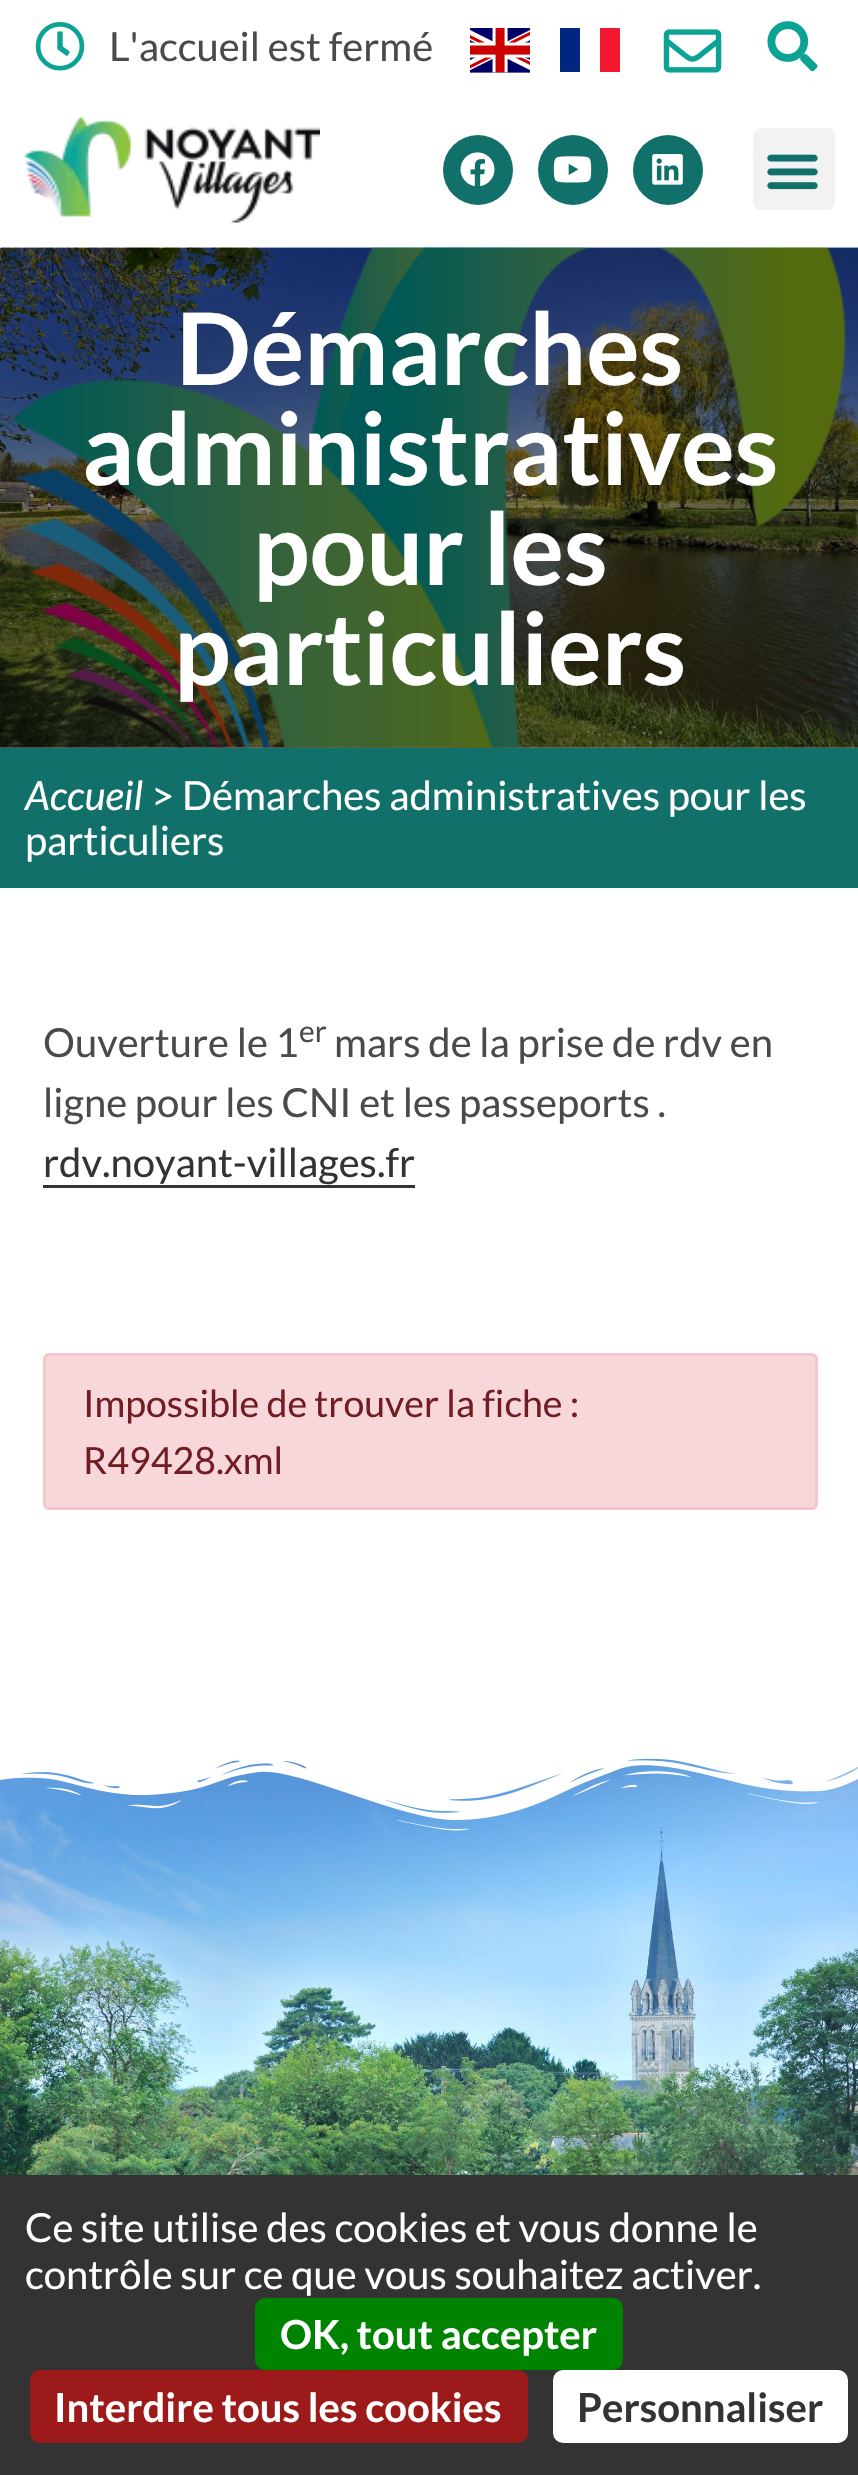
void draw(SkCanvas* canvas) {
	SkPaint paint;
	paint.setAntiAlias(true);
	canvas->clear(0xffffffff);
	paint.setColor(0xff8c8c8c);
	canvas->drawRect(SkRect::MakeXYWH(0, 747, 858, 1), paint);
	canvas->drawImageRect(SkImages::DeferredFromEncodedData(SkData::MakeFromFileName("img1.png")), SkRect::MakeXYWH(35, 22, 50, 49), SkSamplingOptions());
	SkFont f1(fontMgr->matchFamilyStyle("Lato", SkFontStyle::Normal()), 40);
	f1.setSubpixel(true);
	paint.setColor(0xff4a4a4a);
	canvas->drawString("L'accueil est fermé", 109, 61, f1, paint);
	canvas->drawImageRect(SkImages::DeferredFromEncodedData(SkData::MakeFromFileName("img2.png")), SkRect::MakeXYWH(470, 28, 60, 45), SkSamplingOptions());
	paint.setColor(0xff00267f);
	canvas->drawRect(SkRect::MakeXYWH(560, 28, 20, 44), paint);
	paint.setColor(0xfff31830);
	canvas->drawRect(SkRect::MakeXYWH(600, 28, 20, 44), paint);
	canvas->drawImageRect(SkImages::DeferredFromEncodedData(SkData::MakeFromFileName("img3.png")), SkRect::MakeXYWH(663, 29, 59, 44), SkSamplingOptions());
	canvas->drawImageRect(SkImages::DeferredFromEncodedData(SkData::MakeFromFileName("img4.png")), SkRect::MakeXYWH(767, 21, 51, 51), SkSamplingOptions());
	canvas->drawImageRect(SkImages::DeferredFromEncodedData(SkData::MakeFromFileName("img5.png")), SkRect::MakeXYWH(25, 117, 295, 106), SkSamplingOptions());
	paint.setColor(0xff11706a);
	canvas->drawCircle(478, 170, 35, paint);
	canvas->drawImageRect(SkImages::DeferredFromEncodedData(SkData::MakeFromFileName("img6.png")), SkRect::MakeXYWH(460, 152, 35, 35), SkSamplingOptions());
	canvas->drawCircle(573, 170, 35, paint);
	canvas->drawImageRect(SkImages::DeferredFromEncodedData(SkData::MakeFromFileName("img7.png")), SkRect::MakeXYWH(553, 156, 39, 27), SkSamplingOptions());
	canvas->drawCircle(668, 170, 35, paint);
	canvas->drawImageRect(SkImages::DeferredFromEncodedData(SkData::MakeFromFileName("img8.png")), SkRect::MakeXYWH(652, 154, 31, 31), SkSamplingOptions());
	paint.setColor(0xfff2f2f2);
	canvas->drawRoundRect(SkRect::MakeXYWH(753, 128, 82, 82), 8, 8, paint);
	canvas->drawImageRect(SkImages::DeferredFromEncodedData(SkData::MakeFromFileName("img9.png")), SkRect::MakeXYWH(767, 154, 51, 36), SkSamplingOptions());
	canvas->drawImageRect(SkImages::DeferredFromEncodedData(SkData::MakeFromFileName("img10.png")), SkRect::MakeXYWH(0, 247, 858, 501), SkSamplingOptions());
	canvas->drawImageRect(SkImages::DeferredFromEncodedData(SkData::MakeFromFileName("img11.png")), SkRect::MakeXYWH(11, 247, 835, 501), SkSamplingOptions());
	SkFont f2(fontMgr->matchFamilyStyle("Lato", SkFontStyle::Bold()), 100);
	f2.setSubpixel(true);
	paint.setColor(0xffffffff);
	canvas->drawString("Démarches", 176, 385, f2, paint);
	canvas->drawString("administratives", 82, 485, f2, paint);
	canvas->drawString("pour les", 253, 585, f2, paint);
	canvas->drawString("particuliers", 174, 685, f2, paint);
	paint.setColor(0xff11706a);
	canvas->drawRect(SkRect::MakeXYWH(0, 748, 858, 140), paint);
	SkFont f3(fontMgr->matchFamilyStyle("Lato", SkFontStyle::Italic()), 40);
	f3.setSubpixel(true);
	paint.setColor(0xffffffff);
	canvas->drawString("Accueil", 25, 810, f3, paint);
	canvas->drawString("> Démarches administratives pour les", 151, 810, f1, paint);
	canvas->drawString("particuliers", 25, 855, f1, paint);
	paint.setColor(0xff4a4a4a);
	canvas->drawString("Ouverture le 1", 43, 1057, f1, paint);
	SkFont f4(fontMgr->matchFamilyStyle("Lato", SkFontStyle::Normal()), 30);
	f4.setSubpixel(true);
	canvas->drawString("er", 299, 1042, f4, paint);
	canvas->drawString("mars de la prise de rdv en", 334, 1057, f1, paint);
	canvas->drawString("ligne pour les CNI et les passeports .", 43, 1117, f1, paint);
	paint.setColor(0xff333333);
	canvas->drawString("rdv.noyant-villages.fr", 43, 1177, f1, paint);
	canvas->drawRect(SkRect::MakeXYWH(43, 1185, 372, 3), paint);
	paint.setColor(0xfff8d7da);
	canvas->drawRoundRect(SkRect::MakeXYWH(44.5, 1354.5, 772, 154), 4.5, 4.5, paint);
	paint.setStroke(true);
	paint.setStrokeWidth(3);
	paint.setColor(0xfff5c6cb);
	canvas->drawRoundRect(SkRect::MakeXYWH(44.5, 1354.5, 772, 154), 4.5, 4.5, paint);
	SkFont f5(fontMgr->matchFamilyStyle("Lato", SkFontStyle::Normal()), 37.5);
	f5.setSubpixel(true);
	paint.setStroke(false);
	paint.setColor(0xff721c24);
	canvas->drawString("Impossible de trouver la fiche :", 83, 1417, f5, paint);
	canvas->drawString("R49428.xml", 83, 1474, f5, paint);
	canvas->drawImageRect(SkImages::DeferredFromEncodedData(SkData::MakeFromFileName("img12.png")), SkRect::MakeXYWH(0, 1758, 858, 417), SkSamplingOptions());
	canvas->drawImageRect(SkImages::DeferredFromEncodedData(SkData::MakeFromFileName("img13.png")), SkRect::MakeXYWH(0, 1750, 858, 81), SkSamplingOptions());
	paint.setColor(0xff333333);
	canvas->drawRect(SkRect::MakeXYWH(0, 2175, 858, 300), paint);
	paint.setColor(0xffffffff);
	canvas->drawString("Ce site utilise des cookies et vous donne le", 25, 2242, f1, paint);
	canvas->drawString("contrôle sur ce que vous souhaitez activer.", 25, 2289, f1, paint);
	paint.setColor(0xff008300);
	canvas->drawRoundRect(SkRect::MakeXYWH(255, 2298, 368, 72), 10, 10, paint);
	SkFont f6(fontMgr->matchFamilyStyle("Lato", SkFontStyle::Bold()), 40);
	f6.setSubpixel(true);
	paint.setColor(0xffffffff);
	canvas->drawString("OK, tout accepter", 280, 2349, f6, paint);
	paint.setColor(0xff9c1a1a);
	canvas->drawRoundRect(SkRect::MakeXYWH(30, 2370, 498, 73), 10, 10, paint);
	paint.setColor(0xffffffff);
	canvas->drawString("Interdire tous les cookies", 54, 2422, f6, paint);
	canvas->drawRoundRect(SkRect::MakeXYWH(553, 2370, 295, 73), 10, 10, paint);
	paint.setColor(0xff333333);
	canvas->drawString("Personnaliser", 577, 2422, f6, paint);
}
